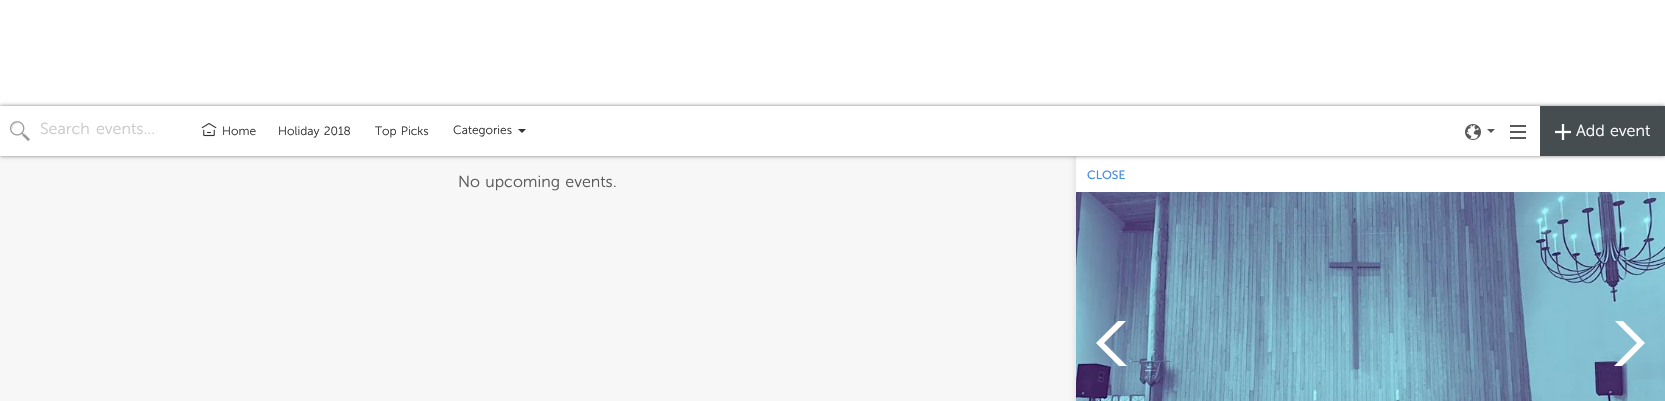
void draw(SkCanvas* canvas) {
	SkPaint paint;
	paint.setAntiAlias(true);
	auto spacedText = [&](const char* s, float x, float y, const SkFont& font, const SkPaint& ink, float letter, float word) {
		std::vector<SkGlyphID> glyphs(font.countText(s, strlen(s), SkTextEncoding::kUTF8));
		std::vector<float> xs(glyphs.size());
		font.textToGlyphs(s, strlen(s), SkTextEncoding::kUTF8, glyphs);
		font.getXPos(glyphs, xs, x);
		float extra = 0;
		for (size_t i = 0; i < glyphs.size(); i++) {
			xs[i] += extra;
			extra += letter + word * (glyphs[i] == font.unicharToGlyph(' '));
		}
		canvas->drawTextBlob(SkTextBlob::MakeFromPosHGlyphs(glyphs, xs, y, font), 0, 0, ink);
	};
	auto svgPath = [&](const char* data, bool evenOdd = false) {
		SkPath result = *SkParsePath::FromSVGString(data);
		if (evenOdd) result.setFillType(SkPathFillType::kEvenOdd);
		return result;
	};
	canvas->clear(0xffffffff);
	paint.setColor(0xfff7f7f7);
	canvas->drawRect(SkRect::MakeXYWH(0, 156, 1075, 245), paint);
	paint.setColor(0x0f000000);
	paint.setMaskFilter(SkMaskFilter::MakeBlur(kNormal_SkBlurStyle, 2));
	canvas->drawRect(SkRect::MakeXYWH(1073, 155, 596, 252), paint);
	paint.setMaskFilter(nullptr);
	paint.setColor(0xffe8e9ea);
	canvas->drawRect(SkRect::MakeXYWH(1075, 156, 1, 245), paint);
	paint.setColor(0xffffffff);
	canvas->drawRect(SkRect::MakeXYWH(1076, 156, 589, 36), paint);
	paint.setColor(0x80000000);
	paint.setMaskFilter(SkMaskFilter::MakeBlur(kNormal_SkBlurStyle, 2));
	canvas->drawRect(SkRect::MakeXYWH(0, 106, 1665, 50), paint);
	paint.setMaskFilter(nullptr);
	paint.setColor(0xffffffff);
	canvas->drawRect(SkRect::MakeXYWH(0, 106, 1540, 50), paint);
	canvas->drawImageRect(SkImages::DeferredFromEncodedData(SkData::MakeFromFileName("img1.png")), SkRect::MakeXYWH(10, 121, 20, 20), SkSamplingOptions());
	SkFont f1(fontMgr->matchFamilyStyle("Museo Sans", SkFontStyle(300, SkFontStyle::kNormal_Width, SkFontStyle::kUpright_Slant)), 16);
	f1.setSubpixel(true);
	paint.setColor(0xffcacaca);
	spacedText("Search events...", 40, 134, f1, paint, 0, 2);
	canvas->drawImageRect(SkImages::DeferredFromEncodedData(SkData::MakeFromFileName("img2.png")), SkRect::MakeXYWH(201, 123, 16, 14), SkSamplingOptions());
	SkFont f2(fontMgr->matchFamilyStyle("Museo Sans", SkFontStyle(300, SkFontStyle::kNormal_Width, SkFontStyle::kUpright_Slant)), 12);
	f2.setSubpixel(true);
	paint.setColor(0xff333333);
	canvas->drawString("Home", 222, 135, f2, paint);
	spacedText("Holiday 2018", 278, 135, f2, paint, 0, 1);
	spacedText("Top Picks", 375, 135, f2, paint, 0, 1);
	canvas->drawString("Categories", 453, 134, f2, paint);
	canvas->drawPath(svgPath("M518 129H526L522 133Z"), paint);
	canvas->drawImageRect(SkImages::DeferredFromEncodedData(SkData::MakeFromFileName("img3.png")), SkRect::MakeXYWH(1465, 124, 16, 16), SkSamplingOptions());
	paint.setColor(0xff575858);
	canvas->drawPath(svgPath("M1487 129H1495L1491 133Z"), paint);
	canvas->drawImageRect(SkImages::DeferredFromEncodedData(SkData::MakeFromFileName("img4.png")), SkRect::MakeXYWH(1510, 125, 16, 14), SkSamplingOptions());
	paint.setColor(0xff464d51);
	canvas->drawRect(SkRect::MakeXYWH(1540, 106, 125, 50), paint);
	canvas->drawImageRect(SkImages::DeferredFromEncodedData(SkData::MakeFromFileName("img5.png")), SkRect::MakeXYWH(1555, 124, 16, 16), SkSamplingOptions());
	paint.setColor(0xffffffff);
	spacedText("Add event", 1576, 136, f1, paint, 0, 1);
	paint.setColor(0xff575858);
	spacedText("No upcoming events.", 458, 187, f1, paint, 0, 1);
	SkFont f3(fontMgr->matchFamilyStyle("Museo Sans", SkFontStyle::Normal()), 12);
	f3.setSubpixel(true);
	paint.setColor(0xff4a90e2);
	canvas->drawString("CLOSE", 1087, 179, f3, paint);
	canvas->drawImageRect(SkImages::DeferredFromEncodedData(SkData::MakeFromFileName("img6.png")), SkRect::MakeXYWH(1076, 192, 589, 209), SkSamplingOptions());
	canvas->save();
	canvas->clipRect(SkRect::MakeXYWH(1086, 321, 45, 45));
	paint.setColor(0xffffffff);
	canvas->drawPath(svgPath("M1119 320L1096 343L1119 366H1127L1104 343L1127 320Z"), paint);
	canvas->restore();
	canvas->save();
	canvas->clipRect(SkRect::MakeXYWH(1610, 321, 45, 45));
	canvas->drawPath(svgPath("M1614 320L1637 343L1614 366H1622L1645 343L1622 320Z"), paint);
	canvas->restore();
}
